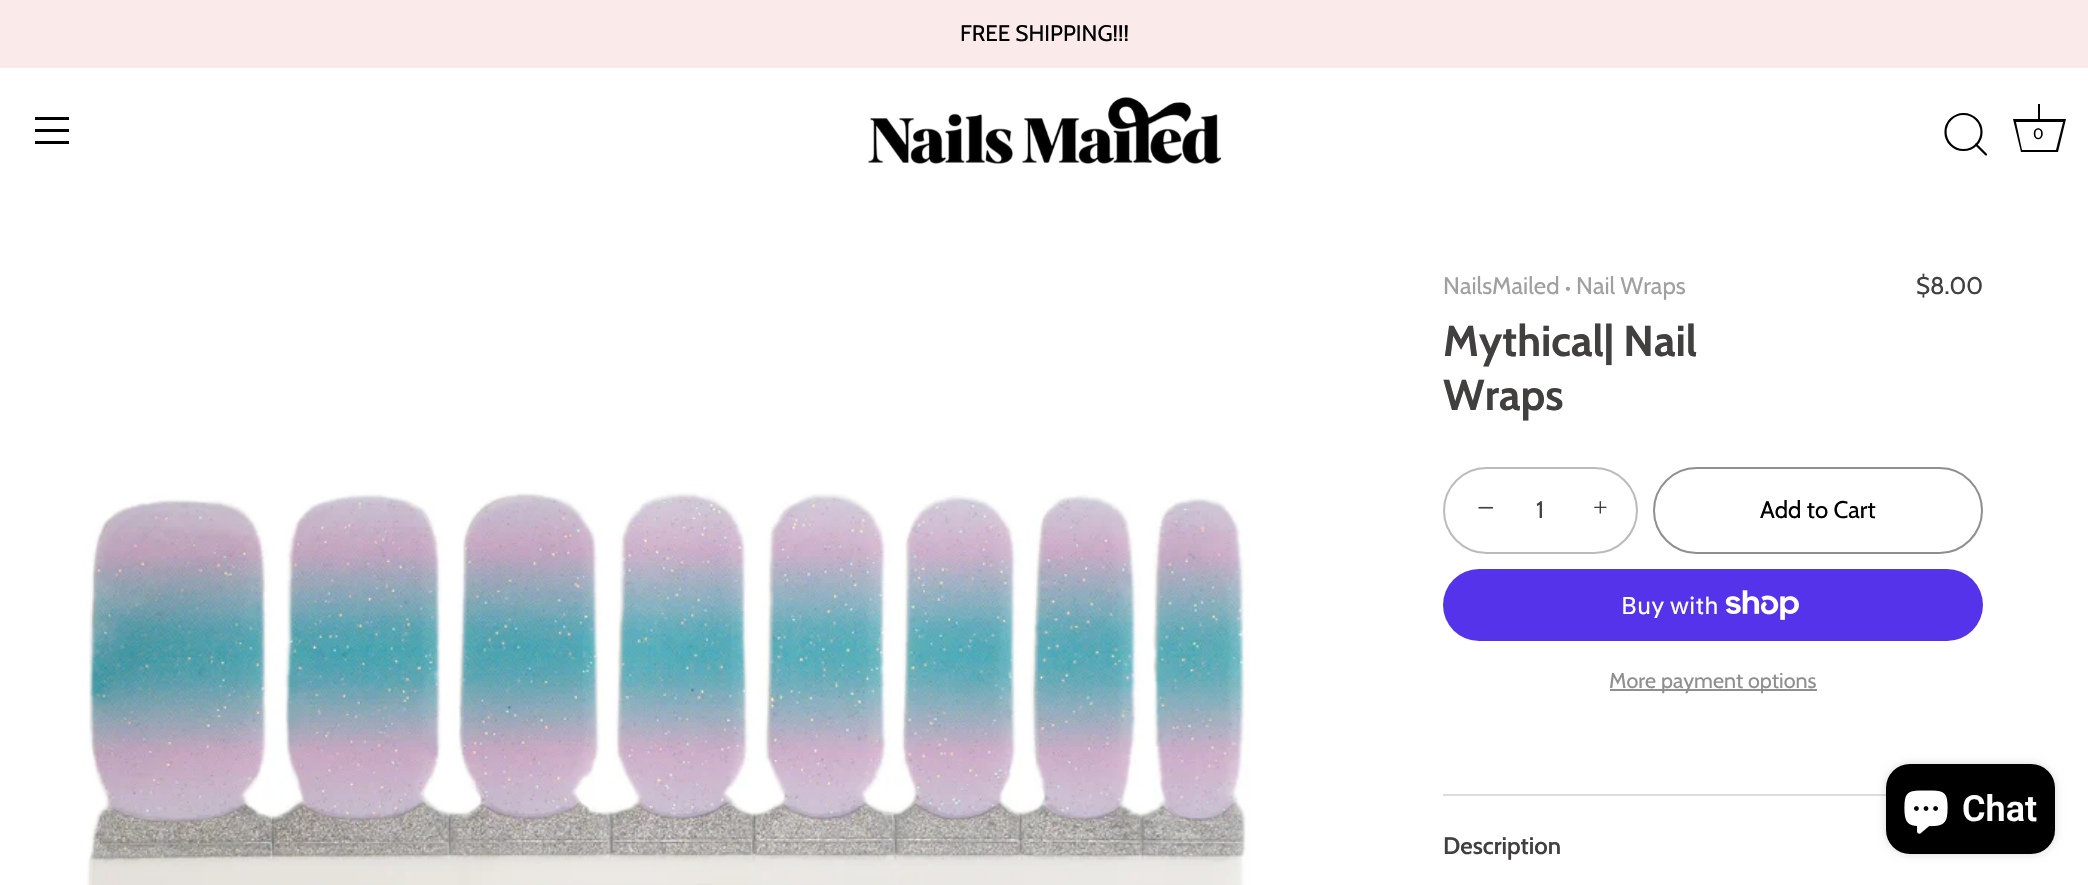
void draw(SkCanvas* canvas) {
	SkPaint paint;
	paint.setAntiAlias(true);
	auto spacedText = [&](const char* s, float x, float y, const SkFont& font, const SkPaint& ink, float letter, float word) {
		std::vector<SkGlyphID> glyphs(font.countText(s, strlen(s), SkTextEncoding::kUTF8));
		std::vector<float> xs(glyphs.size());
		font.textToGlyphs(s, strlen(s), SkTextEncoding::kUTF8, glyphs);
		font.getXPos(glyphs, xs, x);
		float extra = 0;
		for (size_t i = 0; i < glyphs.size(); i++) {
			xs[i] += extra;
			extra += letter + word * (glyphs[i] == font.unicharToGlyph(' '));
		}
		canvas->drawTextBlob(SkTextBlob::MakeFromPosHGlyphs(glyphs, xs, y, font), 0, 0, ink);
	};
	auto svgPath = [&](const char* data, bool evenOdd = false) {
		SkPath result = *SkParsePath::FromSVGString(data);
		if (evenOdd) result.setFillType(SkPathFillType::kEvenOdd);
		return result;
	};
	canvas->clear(0xffffffff);
	paint.setColor(0xfffaebea);
	canvas->drawRect(SkRect::MakeXYWH(0, 0, 2088, 68), paint);
	SkFont f1(fontMgr->matchFamilyStyle("Cabin", SkFontStyle::Normal()), 22.5);
	f1.setSubpixel(true);
	paint.setColor(0xff000000);
	canvas->drawString("FREE SHIPPING!!!", 960, 41, f1, paint);
	canvas->drawRect(SkRect::MakeXYWH(35, 117, 34, 3), paint);
	canvas->drawRect(SkRect::MakeXYWH(35, 129, 34, 3), paint);
	canvas->drawRect(SkRect::MakeXYWH(35, 141, 34, 3), paint);
	canvas->drawImageRect(SkImages::DeferredFromEncodedData(SkData::MakeFromFileName("img1.png")), SkRect::MakeXYWH(868, 97, 353, 67), SkSamplingOptions());
	paint.setStroke(true);
	paint.setStrokeWidth(2.2);
	canvas->drawCircle(1963.5, 132, 18, paint);
	paint.setStrokeCap(SkPaint::kRound_Cap);
	paint.setStrokeJoin(SkPaint::kRound_Join);
	canvas->drawPath(svgPath("M1986 154.5L1976 144.5"), paint);
	paint.setStroke(false);
	canvas->drawRect(SkRect::MakeXYWH(2038, 104, 2, 15), paint);
	canvas->drawPath(svgPath("M2063 122L2056 150H2022L2016 122H2063M2066 119H2013L2021 152H2058Z"), paint);
	SkFont f2(fontMgr->matchFamilyStyle("Cabin", SkFontStyle::Normal()), 15);
	f2.setSubpixel(true);
	canvas->drawString("0", 2033, 139, f2, paint);
	canvas->drawImageRect(SkImages::DeferredFromEncodedData(SkData::MakeFromFileName("img2.png")), SkRect::MakeXYWH(87, 491, 1162, 394), SkSamplingOptions());
	SkFont f3(fontMgr->matchFamilyStyle("Cabin", SkFontStyle::Normal()), 24);
	f3.setSubpixel(true);
	paint.setColor(0xffa19f9f);
	canvas->drawString("NailsMailed", 1443, 294, f3, paint);
	SkFont f4(fontMgr->matchFamilyStyle("Cabin", SkFontStyle::Normal()), 19);
	f4.setSubpixel(true);
	canvas->drawString("•", 1565, 294, f4, paint);
	canvas->drawString("Nail Wraps", 1576, 294, f3, paint);
	paint.setColor(0xff423f3f);
	canvas->drawString("$8.00", 1916, 294, f3, paint);
	SkFont f5(fontMgr->matchFamilyStyle("Cabin", SkFontStyle::Bold()), 43.25);
	f5.setSubpixel(true);
	canvas->drawString("Mythical| Nail", 1443, 356, f5, paint);
	canvas->drawString("Wraps", 1443, 410, f5, paint);
	paint.setStroke(true);
	paint.setStrokeWidth(2);
	paint.setStrokeCap(SkPaint::kButt_Cap);
	paint.setStrokeJoin(SkPaint::kMiter_Join);
	paint.setColor(0xffbbbbbb);
	canvas->drawRoundRect(SkRect::MakeXYWH(1444, 468, 193, 85), 42.5, 42.5, paint);
	SkFont f6(fontMgr->matchFamilyStyle("Liberation Serif", SkFontStyle::Normal()), 31);
	f6.setSubpixel(true);
	paint.setStroke(false);
	paint.setColor(0xff423f3f);
	canvas->drawString("−", 1477, 518, f6, paint);
	spacedText("1", 1536, 518, f3, paint, 1, 0);
	SkFont f7(fontMgr->matchFamilyStyle("Liberation Serif", SkFontStyle::Normal()), 26);
	f7.setSubpixel(true);
	canvas->drawString("+", 1593, 516, f7, paint);
	paint.setStroke(true);
	paint.setColor(0xff908e8e);
	canvas->drawRoundRect(SkRect::MakeXYWH(1654, 468, 328, 85), 42.5, 42.5, paint);
	paint.setStroke(false);
	paint.setColor(0xff000000);
	canvas->drawString("Add to Cart", 1760, 518, f3, paint);
	paint.setColor(0xff5433eb);
	canvas->drawRoundRect(SkRect::MakeXYWH(1443, 569, 540, 72), 36, 36, paint);
	SkFont f8(fontMgr->matchFamilyStyle("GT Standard", SkFontStyle::Normal()), 24);
	f8.setSubpixel(true);
	paint.setColor(0xffffffff);
	canvas->drawString("Buy with", 1621, 614, f8, paint);
	canvas->drawImageRect(SkImages::DeferredFromEncodedData(SkData::MakeFromFileName("img3.png")), SkRect::MakeXYWH(1725, 590, 74, 30), SkSamplingOptions());
	paint.setColor(0xff908e8e);
	canvas->drawRect(SkRect::MakeXYWH(1610, 689, 207, 2), paint);
	SkFont f9(fontMgr->matchFamilyStyle("Cabin", SkFontStyle::Normal()), 21.5);
	f9.setSubpixel(true);
	canvas->drawString("More payment options", 1609, 688, f9, paint);
	paint.setColor(0xffdddddd);
	canvas->drawRect(SkRect::MakeXYWH(1443, 794, 443, 2), paint);
	SkFont f10(fontMgr->matchFamilyStyle("Cabin", SkFontStyle(600, SkFontStyle::kNormal_Width, SkFontStyle::kUpright_Slant)), 24);
	f10.setSubpixel(true);
	paint.setColor(0xff423f3f);
	canvas->drawString("Description", 1443, 854, f10, paint);
	paint.setColor(0x26000000);
	paint.setMaskFilter(SkMaskFilter::MakeBlur(kNormal_SkBlurStyle, 4));
	canvas->drawRoundRect(SkRect::MakeXYWH(1886, 764, 169, 90), 24, 24, paint);
	paint.setMaskFilter(nullptr);
	paint.setColor(0xff000000);
	canvas->drawRoundRect(SkRect::MakeXYWH(1886, 764, 169, 90), 24, 24, paint);
	canvas->drawImageRect(SkImages::DeferredFromEncodedData(SkData::MakeFromFileName("img4.png")), SkRect::MakeXYWH(1904, 790, 44, 44), SkSamplingOptions());
	SkFont f11(fontMgr->matchFamilyStyle("Roboto", SkFontStyle(600, SkFontStyle::kNormal_Width, SkFontStyle::kUpright_Slant)), 36);
	f11.setSubpixel(true);
	paint.setColor(0xffffffff);
	canvas->drawString("Chat", 1962, 821, f11, paint);
}
